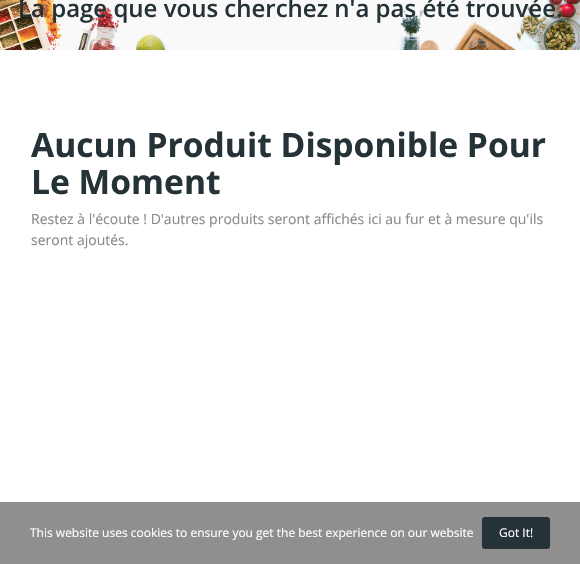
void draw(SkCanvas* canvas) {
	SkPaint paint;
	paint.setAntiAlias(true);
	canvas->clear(0xffffffff);
	canvas->drawImageRect(SkImages::DeferredFromEncodedData(SkData::MakeFromFileName("img1.png")), SkRect::MakeXYWH(0, 0, 580, 50), SkSamplingOptions());
	SkFont f1(fontMgr->matchFamilyStyle("Open Sans", SkFontStyle(600, SkFontStyle::kNormal_Width, SkFontStyle::kUpright_Slant)), 24);
	f1.setSubpixel(true);
	paint.setColor(0xff253237);
	canvas->drawString("La page que vous cherchez n'a pas été trouvée.", 18, 17, f1, paint);
	SkFont f2(fontMgr->matchFamilyStyle("Open Sans", SkFontStyle::Bold()), 33.6);
	f2.setSubpixel(true);
	canvas->drawString("Aucun Produit Disponible Pour", 31, 157, f2, paint);
	canvas->drawString("Le Moment", 31, 194, f2, paint);
	SkFont f3(fontMgr->matchFamilyStyle("Open Sans", SkFontStyle::Normal()), 14);
	f3.setSubpixel(true);
	paint.setColor(0xff888888);
	canvas->drawString("Restez à l'écoute ! D'autres produits seront affichés ici au fur et à mesure qu'ils", 31, 224, f3, paint);
	canvas->drawString("seront ajoutés.", 31, 245, f3, paint);
	paint.setColor(0xff908e8f);
	canvas->drawRect(SkRect::MakeXYWH(0, 502, 580, 62), paint);
	SkFont f4(fontMgr->matchFamilyStyle("Open Sans", SkFontStyle::Normal()), 12);
	f4.setSubpixel(true);
	paint.setColor(0xffffffff);
	canvas->drawString("This website uses cookies to ensure you get the best experience on our website", 30, 537, f4, paint);
	paint.setColor(0xff253237);
	canvas->drawRoundRect(SkRect::MakeXYWH(483, 518, 66, 30), 2, 2, paint);
	paint.setStroke(true);
	paint.setStrokeWidth(2);
	canvas->drawRoundRect(SkRect::MakeXYWH(483, 518, 66, 30), 2, 2, paint);
	paint.setStroke(false);
	paint.setColor(0xffffffff);
	canvas->drawString("Got It!", 499, 537, f4, paint);
}
